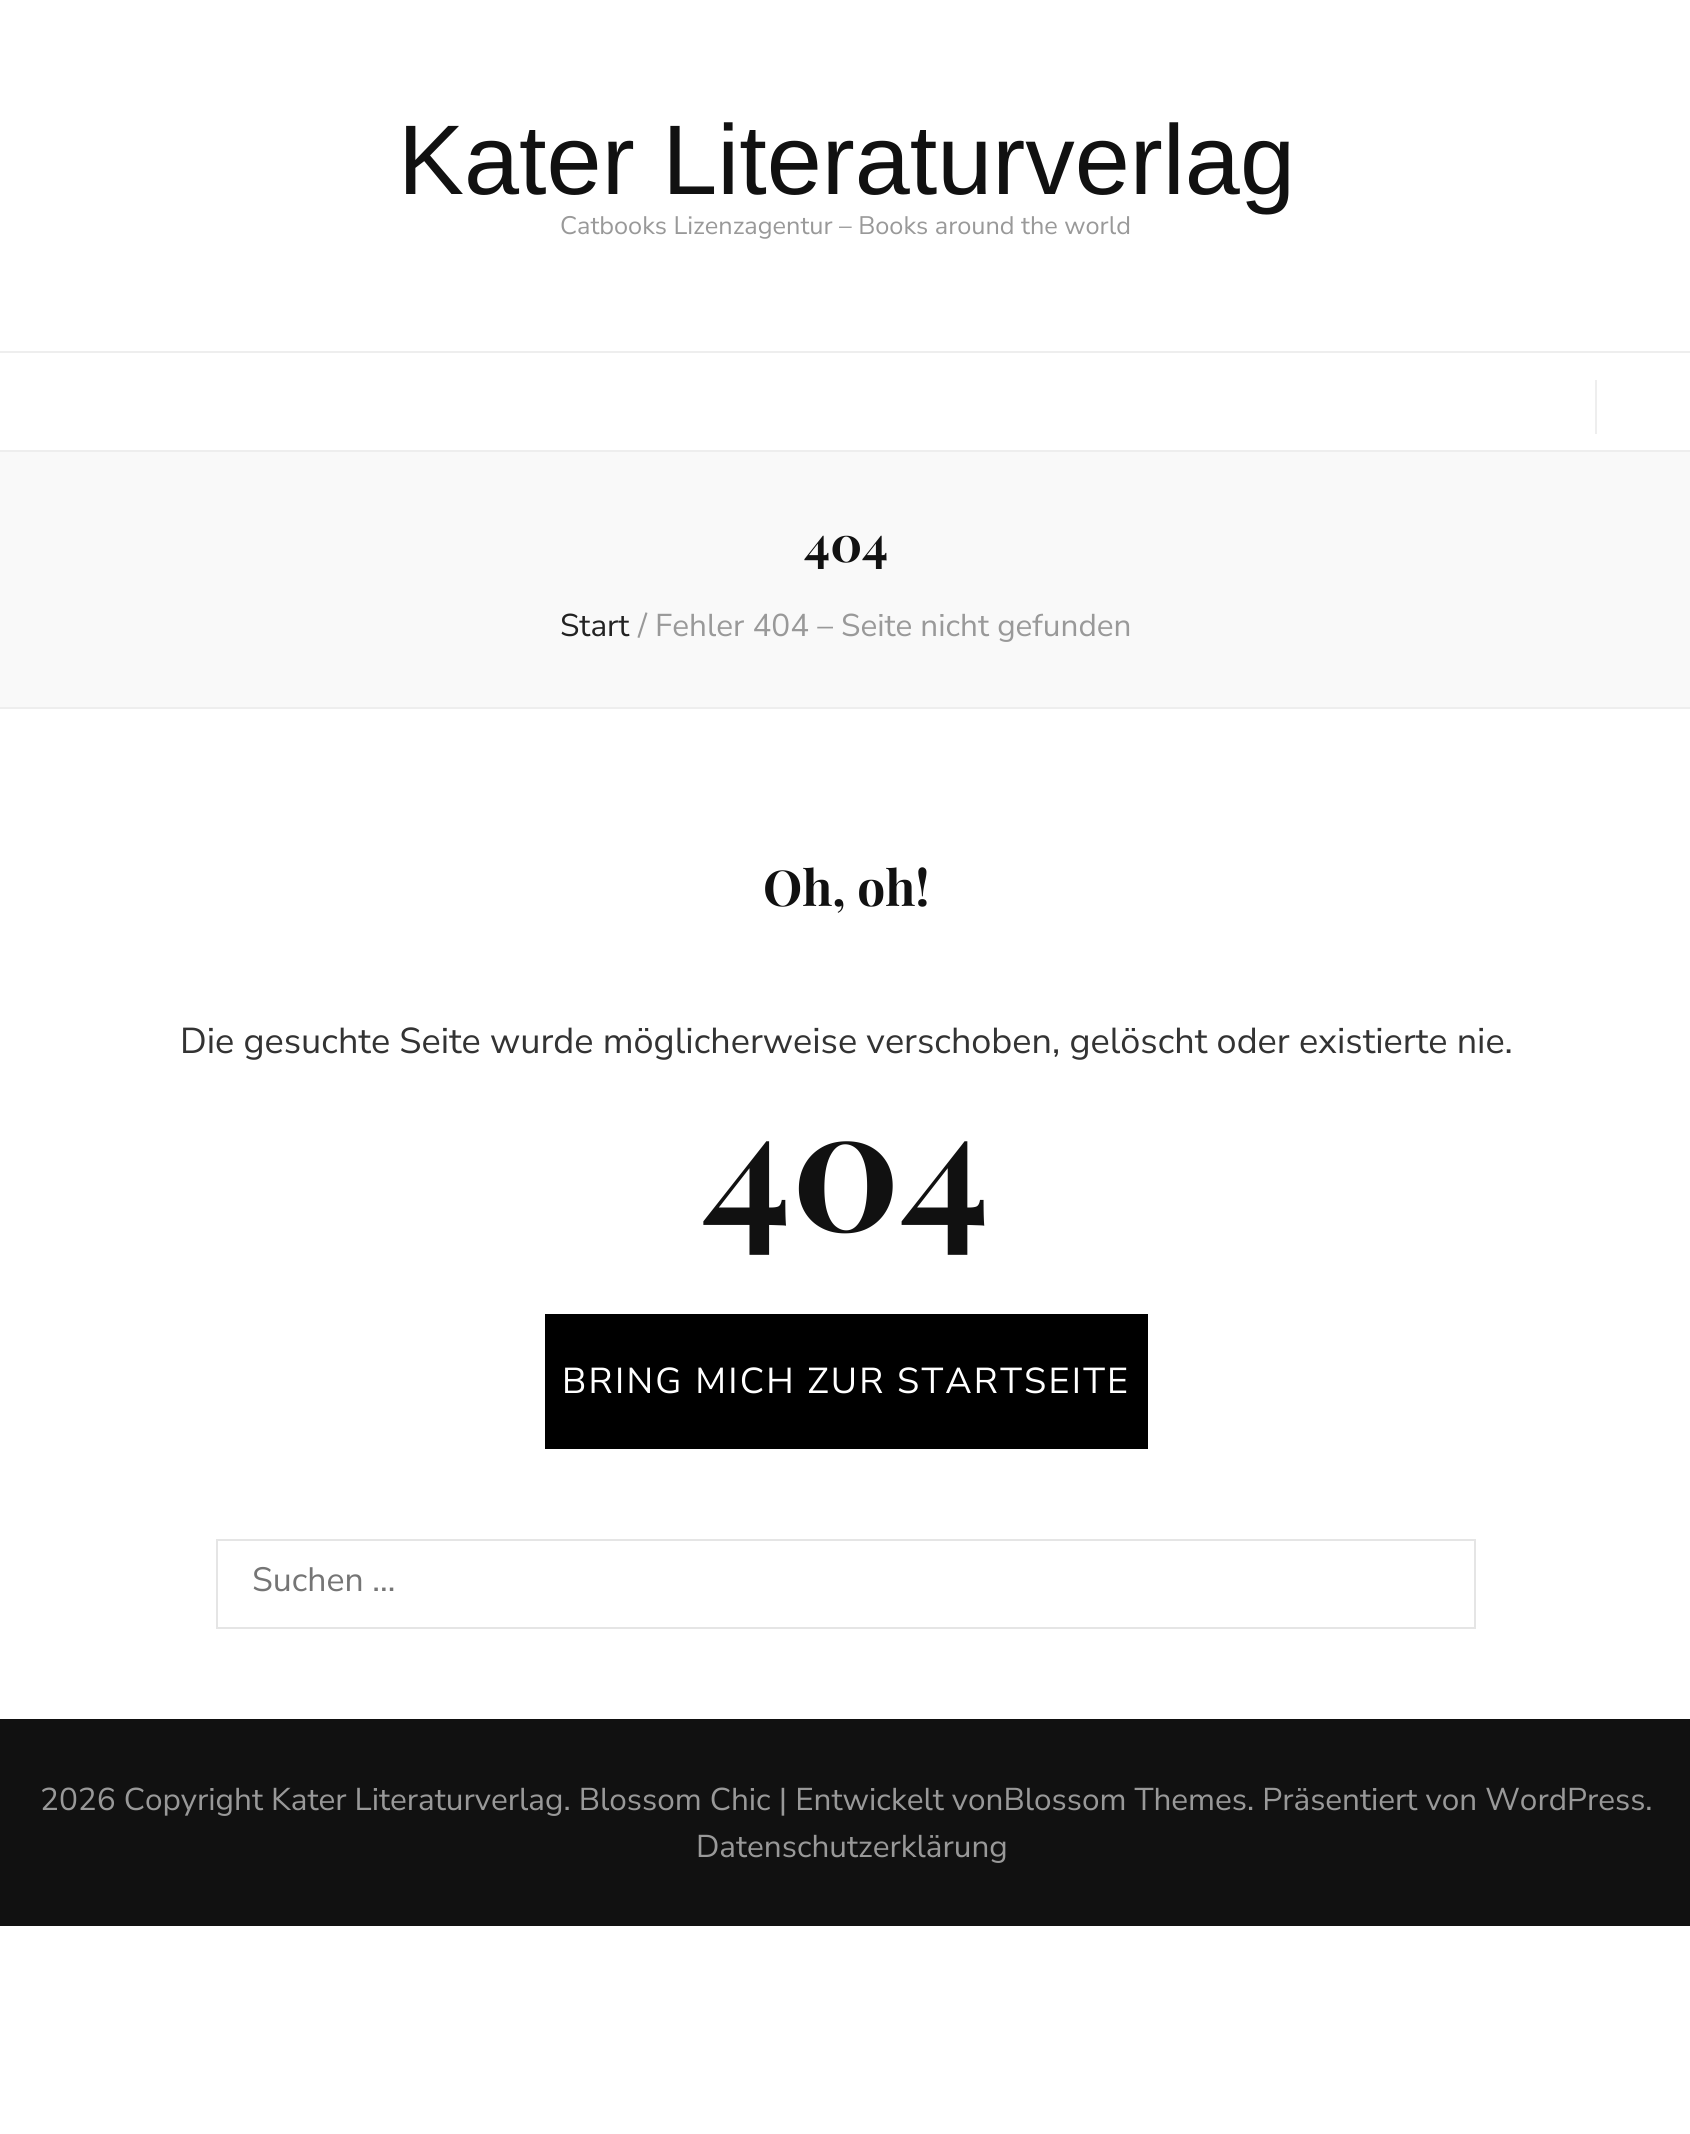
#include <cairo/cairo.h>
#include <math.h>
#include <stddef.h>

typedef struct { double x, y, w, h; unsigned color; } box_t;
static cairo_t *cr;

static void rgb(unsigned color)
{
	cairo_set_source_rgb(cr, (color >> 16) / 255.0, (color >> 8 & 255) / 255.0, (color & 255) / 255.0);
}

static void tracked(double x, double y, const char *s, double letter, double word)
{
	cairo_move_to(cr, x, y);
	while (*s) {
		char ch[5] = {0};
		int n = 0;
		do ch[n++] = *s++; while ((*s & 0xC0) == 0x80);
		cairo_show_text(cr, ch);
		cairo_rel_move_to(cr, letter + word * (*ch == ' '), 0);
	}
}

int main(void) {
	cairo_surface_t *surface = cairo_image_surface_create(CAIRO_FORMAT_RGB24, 1690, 2134);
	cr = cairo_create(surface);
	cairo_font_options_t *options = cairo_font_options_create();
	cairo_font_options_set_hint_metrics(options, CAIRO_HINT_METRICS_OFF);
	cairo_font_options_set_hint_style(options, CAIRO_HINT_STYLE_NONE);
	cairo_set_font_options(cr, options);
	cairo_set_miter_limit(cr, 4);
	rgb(0xffffff);
	cairo_paint(cr);
	{
		static const box_t items[] = {
			{0, 351, 1690, 2, 0xeeeeee},
			{0, 450, 1690, 2, 0xeeeeee},
			{1595, 380, 2, 54, 0xeeeeee},
			{0, 452, 1690, 255, 0xf9f9f9},
			{0, 707, 1690, 2, 0xeeeeee},
			{545, 1314, 603, 135, 0x000000},
		};
		for (size_t i = 0; i < sizeof items / sizeof *items; i++) {
			rgb(items[i].color);
			cairo_rectangle(cr, items[i].x, items[i].y, items[i].w, items[i].h);
			cairo_fill(cr);
		}
	}
	cairo_rectangle(cr, 217, 1540, 1258, 88);
	rgb(0xe5e5e5);
	cairo_stroke(cr);
	rgb(0x111111);
	cairo_rectangle(cr, 0, 1719, 1690, 207);
	cairo_fill(cr);
	cairo_select_font_face(cr, "Liberation Sans", CAIRO_FONT_SLANT_NORMAL, CAIRO_FONT_WEIGHT_NORMAL);
	cairo_set_font_size(cr, 99);
	cairo_move_to(cr, 398, 194);
	cairo_show_text(cr, "Kater Literaturverlag");
	cairo_select_font_face(cr, "Nunito Sans", CAIRO_FONT_SLANT_NORMAL, CAIRO_FONT_WEIGHT_NORMAL);
	cairo_set_font_size(cr, 25.3);
	rgb(0x999999);
	cairo_move_to(cr, 560, 234);
	cairo_show_text(cr, "Catbooks Lizenzagentur – Books around the world");
	cairo_select_font_face(cr, "Playfair Display", CAIRO_FONT_SLANT_NORMAL, CAIRO_FONT_WEIGHT_BOLD);
	cairo_set_font_size(cr, 49.5);
	rgb(0x111111);
	cairo_move_to(cr, 804, 562);
	cairo_show_text(cr, "404");
	cairo_select_font_face(cr, "Nunito Sans", CAIRO_FONT_SLANT_NORMAL, CAIRO_FONT_WEIGHT_NORMAL);
	cairo_set_font_size(cr, 31.5);
	rgb(0x222222);
	cairo_move_to(cr, 560, 636);
	cairo_show_text(cr, "Start");
	rgb(0x999999);
	cairo_move_to(cr, 638, 636);
	cairo_show_text(cr, "/ Fehler 404 – Seite nicht gefunden");
	cairo_select_font_face(cr, "Playfair Display", CAIRO_FONT_SLANT_NORMAL, CAIRO_FONT_WEIGHT_BOLD);
	cairo_set_font_size(cr, 49.5);
	rgb(0x111111);
	cairo_move_to(cr, 763, 906);
	cairo_show_text(cr, "Oh, oh!");
	cairo_select_font_face(cr, "Nunito Sans", CAIRO_FONT_SLANT_NORMAL, CAIRO_FONT_WEIGHT_NORMAL);
	cairo_set_font_size(cr, 36);
	rgb(0x333333);
	cairo_move_to(cr, 180, 1053);
	cairo_show_text(cr, "Die gesuchte Seite wurde möglicherweise verschoben, gelöscht oder existierte nie.");
	cairo_select_font_face(cr, "Playfair Display", CAIRO_FONT_SLANT_NORMAL, CAIRO_FONT_WEIGHT_BOLD);
	cairo_set_font_size(cr, 169);
	rgb(0x111111);
	cairo_move_to(cr, 702, 1231);
	cairo_show_text(cr, "404");
	cairo_select_font_face(cr, "Nunito Sans", CAIRO_FONT_SLANT_NORMAL, CAIRO_FONT_WEIGHT_NORMAL);
	cairo_set_font_size(cr, 36);
	rgb(0xffffff);
	tracked(562, 1393, "BRING MICH ZUR STARTSEITE", 2.25, 0);
	cairo_set_font_size(cr, 33.75);
	rgb(0x757575);
	cairo_move_to(cr, 252, 1591);
	cairo_show_text(cr, "Suchen …");
	cairo_set_font_size(cr, 31.5);
	rgb(0x999999);
	cairo_move_to(cr, 40, 1810);
	cairo_show_text(cr, "2026 Copyright Kater Literaturverlag. Blossom Chic | Entwickelt vonBlossom Themes. Präsentiert von WordPress.");
	cairo_move_to(cr, 696, 1857);
	cairo_show_text(cr, "Datenschutzerklärung");
	cairo_surface_write_to_png(surface, "page.png");
	cairo_font_options_destroy(options);
	cairo_destroy(cr);
	cairo_surface_destroy(surface);
	return 0;
}
